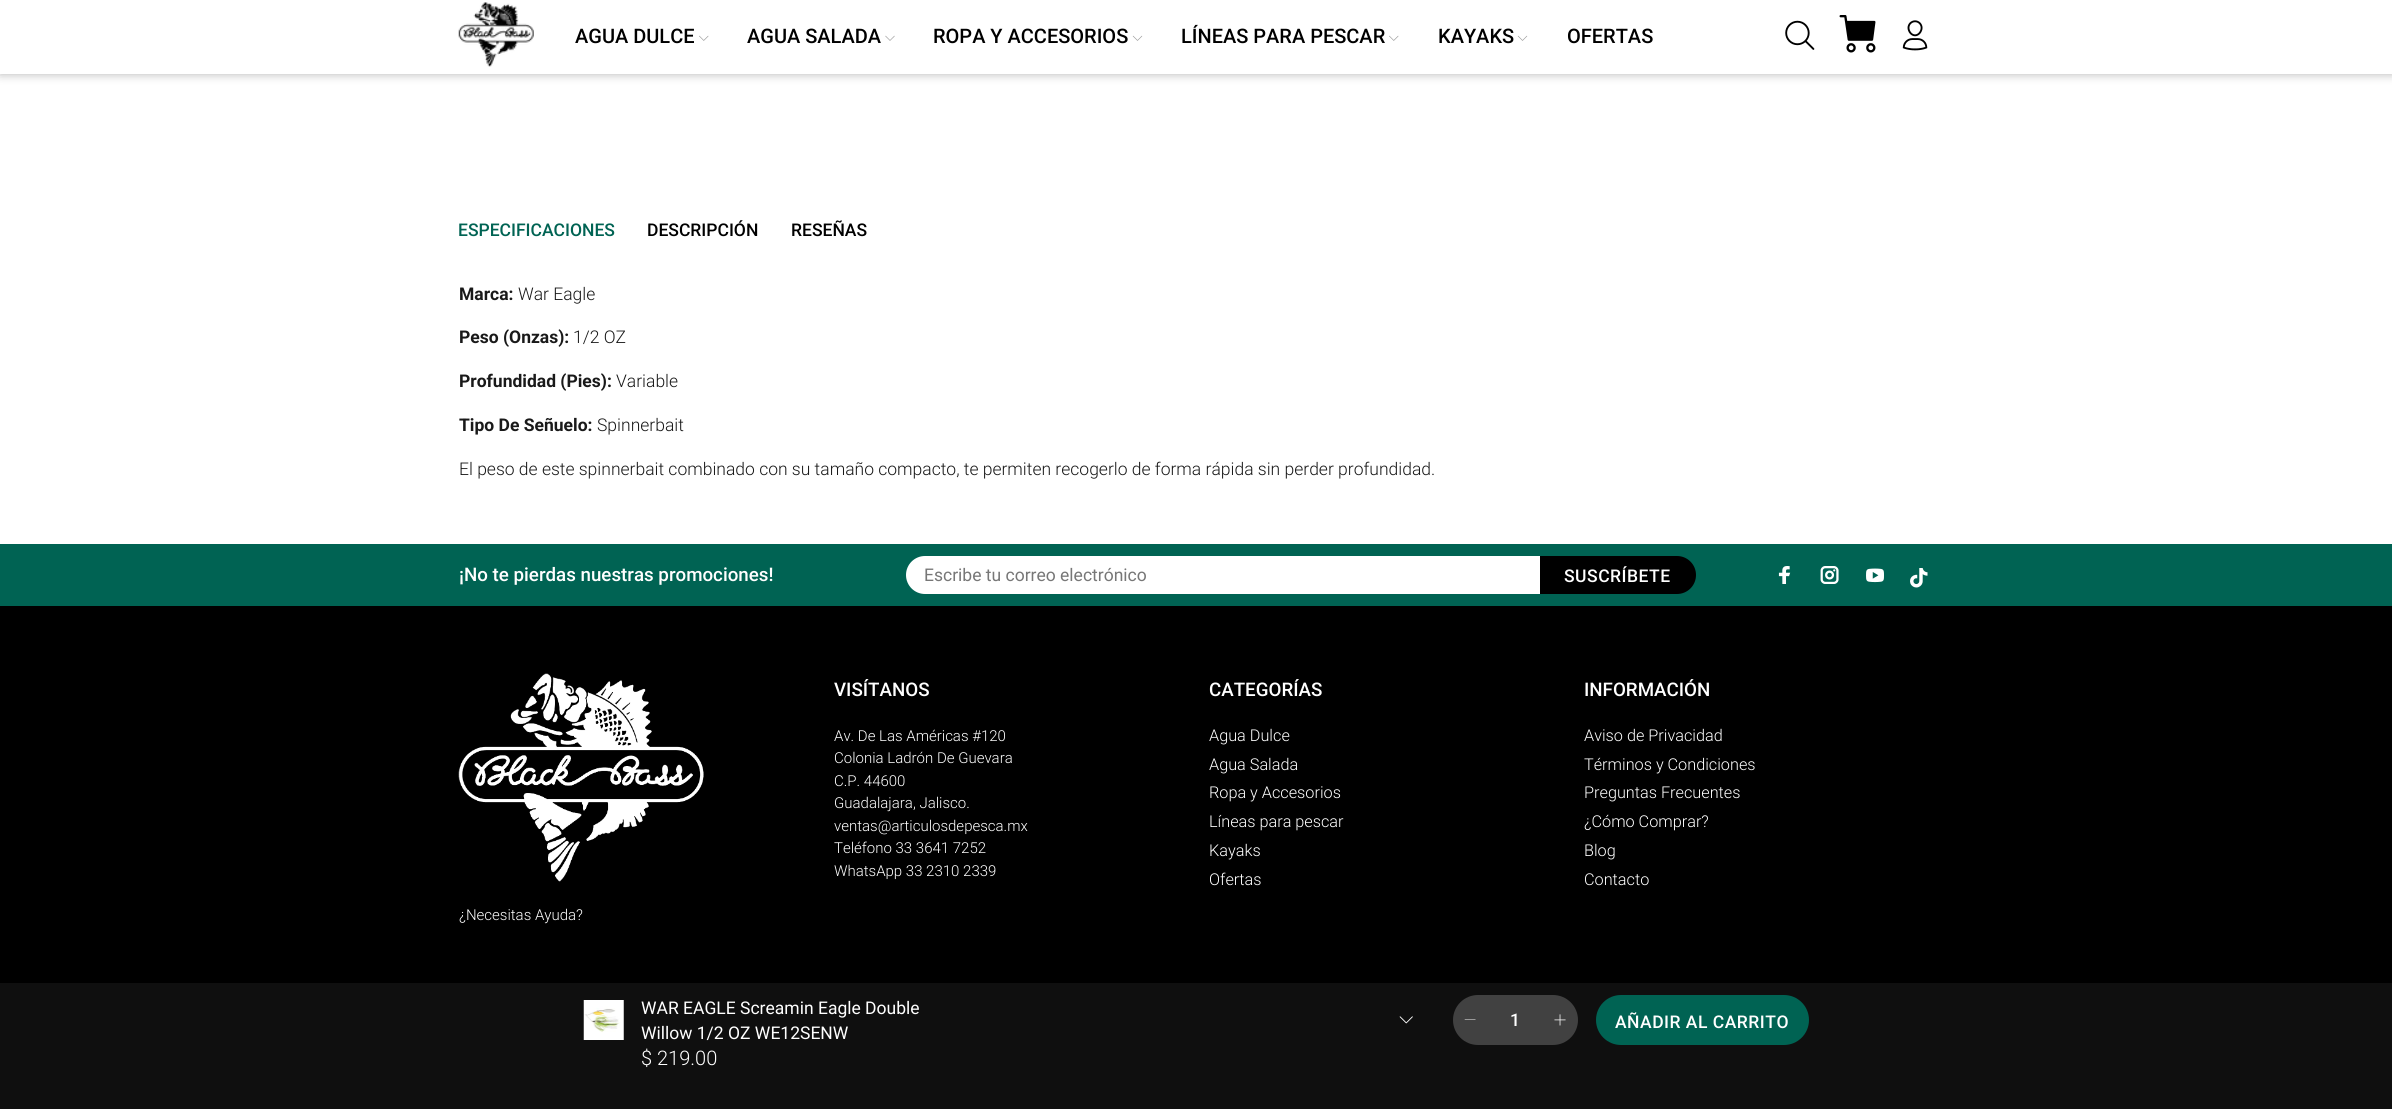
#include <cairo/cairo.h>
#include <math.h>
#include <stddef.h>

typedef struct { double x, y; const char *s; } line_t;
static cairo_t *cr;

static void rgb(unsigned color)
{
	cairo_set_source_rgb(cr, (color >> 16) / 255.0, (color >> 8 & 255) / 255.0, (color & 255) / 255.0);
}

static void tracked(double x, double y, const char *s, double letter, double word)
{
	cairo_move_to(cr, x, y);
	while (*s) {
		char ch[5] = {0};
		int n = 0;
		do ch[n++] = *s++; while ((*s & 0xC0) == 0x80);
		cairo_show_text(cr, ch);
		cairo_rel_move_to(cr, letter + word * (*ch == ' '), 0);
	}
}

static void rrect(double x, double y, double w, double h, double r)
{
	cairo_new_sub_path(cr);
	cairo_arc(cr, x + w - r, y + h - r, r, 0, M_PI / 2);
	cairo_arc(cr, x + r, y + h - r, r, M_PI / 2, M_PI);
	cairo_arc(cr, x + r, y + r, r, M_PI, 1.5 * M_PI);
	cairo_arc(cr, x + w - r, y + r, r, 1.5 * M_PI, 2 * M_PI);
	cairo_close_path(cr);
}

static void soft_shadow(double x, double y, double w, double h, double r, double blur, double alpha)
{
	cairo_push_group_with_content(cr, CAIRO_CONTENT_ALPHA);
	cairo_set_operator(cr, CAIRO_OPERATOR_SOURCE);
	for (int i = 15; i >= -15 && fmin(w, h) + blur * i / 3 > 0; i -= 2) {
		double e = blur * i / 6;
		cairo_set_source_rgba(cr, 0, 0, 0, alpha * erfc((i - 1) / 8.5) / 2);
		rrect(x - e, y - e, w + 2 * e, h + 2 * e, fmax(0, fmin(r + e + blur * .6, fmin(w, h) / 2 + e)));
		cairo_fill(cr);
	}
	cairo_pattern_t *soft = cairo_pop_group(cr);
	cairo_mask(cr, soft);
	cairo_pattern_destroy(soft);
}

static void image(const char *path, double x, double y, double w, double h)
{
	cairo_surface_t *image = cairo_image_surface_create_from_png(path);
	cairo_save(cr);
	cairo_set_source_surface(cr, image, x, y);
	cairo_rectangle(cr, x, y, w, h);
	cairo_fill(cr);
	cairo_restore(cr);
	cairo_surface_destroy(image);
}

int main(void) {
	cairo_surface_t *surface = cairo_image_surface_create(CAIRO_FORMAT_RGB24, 2392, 1109);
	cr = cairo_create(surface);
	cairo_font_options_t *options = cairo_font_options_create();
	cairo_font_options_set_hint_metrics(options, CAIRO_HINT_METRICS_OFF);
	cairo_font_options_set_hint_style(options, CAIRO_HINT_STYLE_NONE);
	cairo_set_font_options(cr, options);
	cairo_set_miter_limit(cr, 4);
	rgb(0xffffff);
	cairo_paint(cr);
	rgb(0x000000);
	soft_shadow(0, 0, 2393, 74, 0, 5, 0.3);
	rgb(0xffffff);
	cairo_rectangle(cr, 0, 0, 2392, 74);
	cairo_fill(cr);
	image("img/1.png", 458, 2, 76, 65);
	image("img/2.png", 699, 35, 10, 6);
	image("img/3.png", 885, 35, 10, 6);
	image("img/4.png", 1132, 35, 11, 6);
	image("img/2.png", 1389, 35, 10, 6);
	image("img/4.png", 1517, 35, 11, 6);
	image("img/5.png", 1785, 20, 30, 30);
	image("img/6.png", 1839, 15, 37, 38);
	image("img/7.png", 1902, 20, 26, 31);
	rgb(0x0f0f0f);
	cairo_rectangle(cr, 0, 983, 2392, 126);
	cairo_fill(cr);
	image("img/8.png", 583, 1000, 41, 40);
	image("img/9.png", 1399, 1016, 14, 8);
	rgb(0x414141);
	rrect(1453, 995, 125, 50, 25);
	cairo_fill(cr);
	rgb(0xffffff);
	cairo_new_path(cr);
	cairo_move_to(cr, 1475.5, 1019.5);
	cairo_line_to(cr, 1475.5, 1020);
	cairo_line_to(cr, 1464.5, 1020);
	cairo_line_to(cr, 1465, 1019.5);
	cairo_close_path(cr);
	cairo_fill(cr);
	image("img/10.png", 1554, 1014, 12, 12);
	rgb(0x006353);
	rrect(1596, 995, 213, 50, 25);
	cairo_fill(cr);
	rgb(0x000000);
	cairo_rectangle(cr, 0, 606, 2392, 377);
	cairo_fill(cr);
	rgb(0x006353);
	cairo_rectangle(cr, 0, 544, 2392, 62);
	cairo_fill(cr);
	rgb(0xffffff);
	cairo_new_path(cr);
	cairo_move_to(cr, 925, 556);
	cairo_line_to(cr, 1540, 556);
	cairo_line_to(cr, 1540, 594);
	cairo_line_to(cr, 925, 594);
	cairo_curve_to(cr, 914.5, 594, 906, 585.5, 906, 575);
	cairo_curve_to(cr, 906, 564.5, 914.5, 556, 925, 556);
	cairo_close_path(cr);
	cairo_fill(cr);
	rgb(0x000000);
	cairo_new_path(cr);
	cairo_move_to(cr, 1540, 556);
	cairo_line_to(cr, 1677, 556);
	cairo_curve_to(cr, 1687.5, 556, 1696, 564.5, 1696, 575);
	cairo_curve_to(cr, 1696, 585.5, 1687.5, 594, 1677, 594);
	cairo_line_to(cr, 1540, 594);
	cairo_close_path(cr);
	cairo_fill(cr);
	image("img/11.png", 1778, 566, 13, 18);
	image("img/12.png", 1820, 566, 19, 18);
	image("img/13.png", 1866, 568, 18, 15);
	image("img/14.png", 1910, 568, 18, 20);
	image("img/15.png", 458, 673, 246, 209);
	cairo_select_font_face(cr, "Roboto Medium", CAIRO_FONT_SLANT_NORMAL, CAIRO_FONT_WEIGHT_NORMAL);
	cairo_set_font_size(cr, 20);
	{
		static const line_t items[] = {
			{575, 43, "AGUA DULCE"},
			{747, 43, "AGUA SALADA"},
			{933, 43, "ROPA Y ACCESORIOS"},
			{1181, 43, "LÍNEAS PARA PESCAR"},
			{1438, 43, "KAYAKS"},
			{1567, 43, "OFERTAS"},
		};
		for (size_t i = 0; i < sizeof items / sizeof *items; i++) {
			cairo_move_to(cr, items[i].x, items[i].y);
			cairo_show_text(cr, items[i].s);
		}
	}
	cairo_set_font_size(cr, 17.5);
	rgb(0x006353);
	cairo_move_to(cr, 458, 236);
	cairo_show_text(cr, "ESPECIFICACIONES");
	rgb(0x000000);
	cairo_move_to(cr, 647, 236);
	cairo_show_text(cr, "DESCRIPCIÓN");
	cairo_move_to(cr, 791, 236);
	cairo_show_text(cr, "RESEÑAS");
	cairo_select_font_face(cr, "Roboto", CAIRO_FONT_SLANT_NORMAL, CAIRO_FONT_WEIGHT_BOLD);
	rgb(0x191919);
	cairo_move_to(cr, 459, 300);
	cairo_show_text(cr, "Marca:");
	cairo_select_font_face(cr, "Roboto Light", CAIRO_FONT_SLANT_NORMAL, CAIRO_FONT_WEIGHT_NORMAL);
	cairo_move_to(cr, 518, 300);
	cairo_show_text(cr, "War Eagle");
	cairo_select_font_face(cr, "Roboto", CAIRO_FONT_SLANT_NORMAL, CAIRO_FONT_WEIGHT_BOLD);
	cairo_move_to(cr, 459, 343);
	cairo_show_text(cr, "Peso (Onzas):");
	cairo_select_font_face(cr, "Roboto Light", CAIRO_FONT_SLANT_NORMAL, CAIRO_FONT_WEIGHT_NORMAL);
	cairo_move_to(cr, 573, 343);
	cairo_show_text(cr, "1/2 OZ");
	cairo_select_font_face(cr, "Roboto", CAIRO_FONT_SLANT_NORMAL, CAIRO_FONT_WEIGHT_BOLD);
	cairo_move_to(cr, 459, 387);
	cairo_show_text(cr, "Profundidad (Pies):");
	cairo_select_font_face(cr, "Roboto Light", CAIRO_FONT_SLANT_NORMAL, CAIRO_FONT_WEIGHT_NORMAL);
	cairo_move_to(cr, 616, 387);
	cairo_show_text(cr, "Variable");
	cairo_select_font_face(cr, "Roboto", CAIRO_FONT_SLANT_NORMAL, CAIRO_FONT_WEIGHT_BOLD);
	cairo_move_to(cr, 459, 431);
	cairo_show_text(cr, "Tipo De Señuelo:");
	cairo_select_font_face(cr, "Roboto Light", CAIRO_FONT_SLANT_NORMAL, CAIRO_FONT_WEIGHT_NORMAL);
	cairo_move_to(cr, 597, 431);
	cairo_show_text(cr, "Spinnerbait");
	cairo_move_to(cr, 459, 475);
	cairo_show_text(cr, "El peso de este spinnerbait combinado con su tamaño compacto, te permiten recogerlo de forma rápida sin perder profundidad.");
	cairo_select_font_face(cr, "Roboto", CAIRO_FONT_SLANT_NORMAL, CAIRO_FONT_WEIGHT_NORMAL);
	rgb(0xffffff);
	cairo_move_to(cr, 641, 1014);
	cairo_show_text(cr, "WAR EAGLE Screamin Eagle Double");
	cairo_move_to(cr, 641, 1039);
	cairo_show_text(cr, "Willow 1/2 OZ WE12SENW");
	cairo_select_font_face(cr, "Roboto Light", CAIRO_FONT_SLANT_NORMAL, CAIRO_FONT_WEIGHT_NORMAL);
	cairo_set_font_size(cr, 20);
	cairo_move_to(cr, 641, 1065);
	cairo_show_text(cr, "$ 219.00");
	cairo_select_font_face(cr, "Roboto Medium", CAIRO_FONT_SLANT_NORMAL, CAIRO_FONT_WEIGHT_NORMAL);
	cairo_set_font_size(cr, 17.5);
	cairo_move_to(cr, 1510, 1026);
	cairo_show_text(cr, "1");
	tracked(1615, 1028, "AÑADIR AL CARRITO", 0.5, 0);
	cairo_set_font_size(cr, 18.75);
	cairo_move_to(cr, 459, 581);
	cairo_show_text(cr, "¡No te pierdas nuestras promociones!");
	cairo_select_font_face(cr, "Roboto", CAIRO_FONT_SLANT_NORMAL, CAIRO_FONT_WEIGHT_NORMAL);
	cairo_set_font_size(cr, 17.5);
	rgb(0x777777);
	cairo_move_to(cr, 924, 581);
	cairo_show_text(cr, "Escribe tu correo electrónico");
	cairo_select_font_face(cr, "Roboto Medium", CAIRO_FONT_SLANT_NORMAL, CAIRO_FONT_WEIGHT_NORMAL);
	rgb(0xffffff);
	tracked(1564, 582, "SUSCRÍBETE", 0.5, 0);
	cairo_set_font_size(cr, 18.75);
	cairo_move_to(cr, 834, 696);
	cairo_show_text(cr, "VISÍTANOS");
	cairo_select_font_face(cr, "Roboto Light", CAIRO_FONT_SLANT_NORMAL, CAIRO_FONT_WEIGHT_NORMAL);
	cairo_set_font_size(cr, 15);
	{
		static const line_t items[] = {
			{834, 741, "Av. De Las Américas #120"},
			{834, 763, "Colonia Ladrón De Guevara"},
			{834, 786, "C.P. 44600"},
			{834, 808, "Guadalajara, Jalisco."},
			{834, 831, "ventas@articulosdepesca.mx"},
			{834, 853, "Teléfono 33 3641 7252"},
			{834, 876, "WhatsApp 33 2310 2339"},
		};
		for (size_t i = 0; i < sizeof items / sizeof *items; i++) {
			cairo_move_to(cr, items[i].x, items[i].y);
			cairo_show_text(cr, items[i].s);
		}
	}
	cairo_select_font_face(cr, "Roboto Medium", CAIRO_FONT_SLANT_NORMAL, CAIRO_FONT_WEIGHT_NORMAL);
	cairo_set_font_size(cr, 18.75);
	cairo_move_to(cr, 1209, 696);
	cairo_show_text(cr, "CATEGORÍAS");
	cairo_select_font_face(cr, "Roboto Light", CAIRO_FONT_SLANT_NORMAL, CAIRO_FONT_WEIGHT_NORMAL);
	cairo_set_font_size(cr, 16.25);
	{
		static const line_t items[] = {
			{1209, 741, "Agua Dulce"},
			{1209, 770, "Agua Salada"},
			{1209, 798, "Ropa y Accesorios"},
			{1209, 827, "Líneas para pescar"},
			{1209, 856, "Kayaks"},
			{1209, 885, "Ofertas"},
		};
		for (size_t i = 0; i < sizeof items / sizeof *items; i++) {
			cairo_move_to(cr, items[i].x, items[i].y);
			cairo_show_text(cr, items[i].s);
		}
	}
	cairo_select_font_face(cr, "Roboto Medium", CAIRO_FONT_SLANT_NORMAL, CAIRO_FONT_WEIGHT_NORMAL);
	cairo_set_font_size(cr, 18.75);
	cairo_move_to(cr, 1584, 696);
	cairo_show_text(cr, "INFORMACIÓN");
	cairo_select_font_face(cr, "Roboto Light", CAIRO_FONT_SLANT_NORMAL, CAIRO_FONT_WEIGHT_NORMAL);
	cairo_set_font_size(cr, 16.25);
	{
		static const line_t items[] = {
			{1584, 741, "Aviso de Privacidad"},
			{1584, 770, "Términos y Condiciones"},
			{1584, 798, "Preguntas Frecuentes"},
			{1584, 827, "¿Cómo Comprar?"},
			{1584, 856, "Blog"},
			{1584, 885, "Contacto"},
		};
		for (size_t i = 0; i < sizeof items / sizeof *items; i++) {
			cairo_move_to(cr, items[i].x, items[i].y);
			cairo_show_text(cr, items[i].s);
		}
	}
	cairo_set_font_size(cr, 15);
	cairo_move_to(cr, 459, 920);
	cairo_show_text(cr, "¿Necesitas Ayuda?");
	cairo_surface_write_to_png(surface, "page.png");
	cairo_font_options_destroy(options);
	cairo_destroy(cr);
	cairo_surface_destroy(surface);
	return 0;
}
